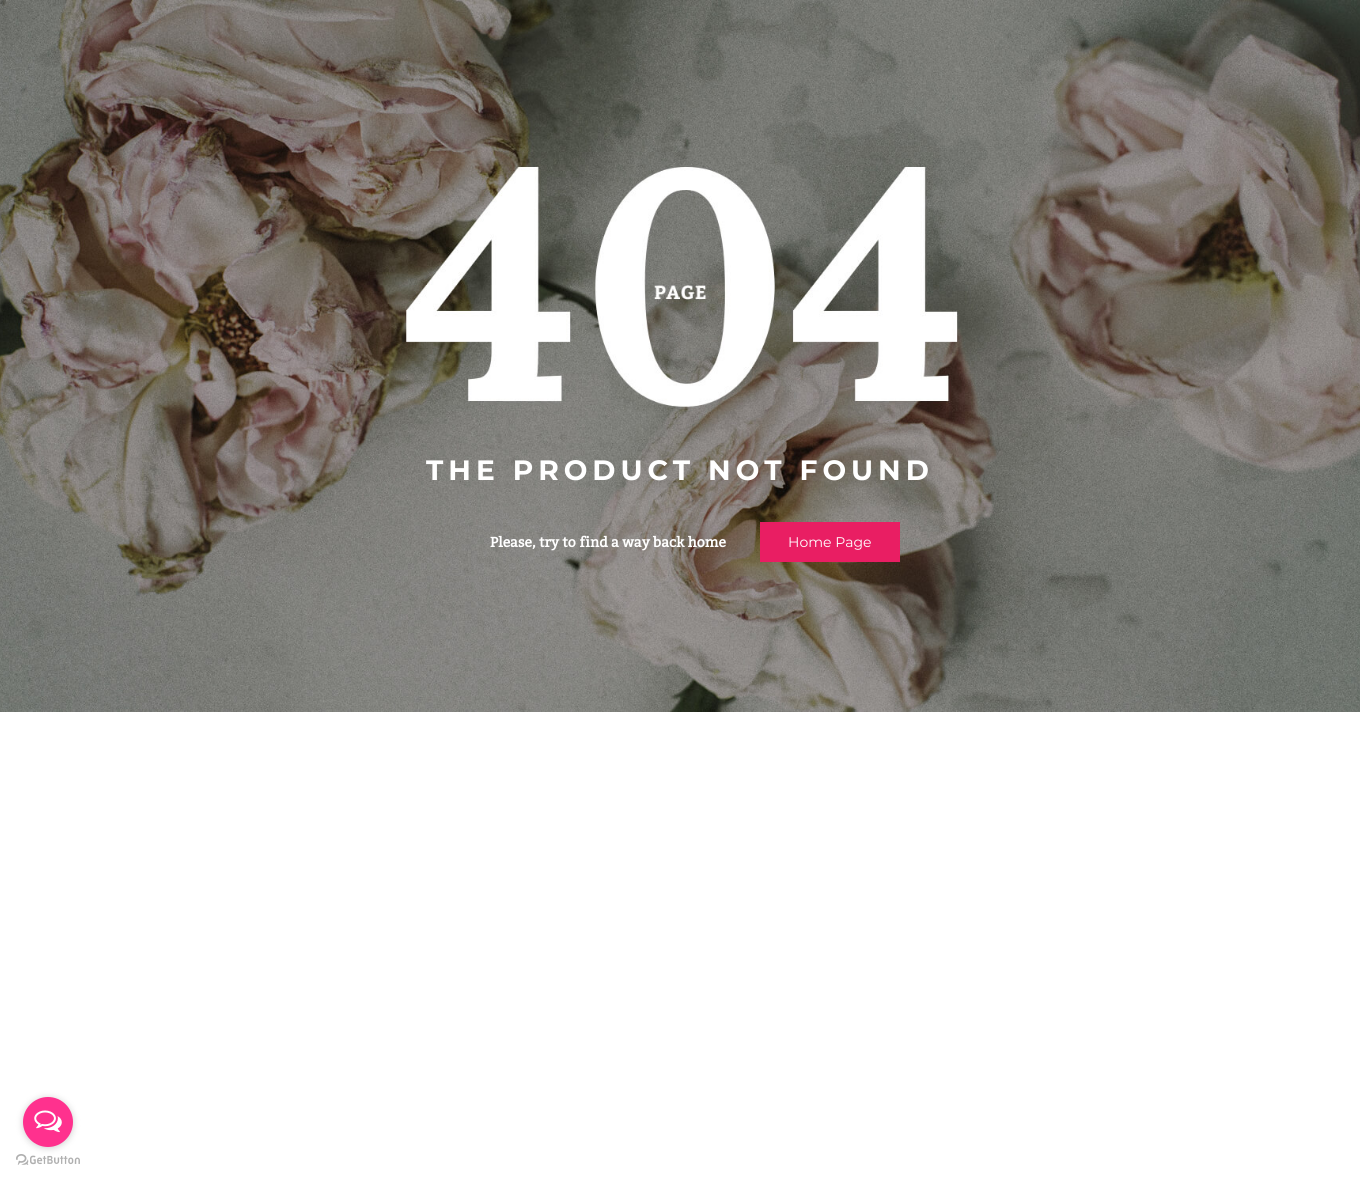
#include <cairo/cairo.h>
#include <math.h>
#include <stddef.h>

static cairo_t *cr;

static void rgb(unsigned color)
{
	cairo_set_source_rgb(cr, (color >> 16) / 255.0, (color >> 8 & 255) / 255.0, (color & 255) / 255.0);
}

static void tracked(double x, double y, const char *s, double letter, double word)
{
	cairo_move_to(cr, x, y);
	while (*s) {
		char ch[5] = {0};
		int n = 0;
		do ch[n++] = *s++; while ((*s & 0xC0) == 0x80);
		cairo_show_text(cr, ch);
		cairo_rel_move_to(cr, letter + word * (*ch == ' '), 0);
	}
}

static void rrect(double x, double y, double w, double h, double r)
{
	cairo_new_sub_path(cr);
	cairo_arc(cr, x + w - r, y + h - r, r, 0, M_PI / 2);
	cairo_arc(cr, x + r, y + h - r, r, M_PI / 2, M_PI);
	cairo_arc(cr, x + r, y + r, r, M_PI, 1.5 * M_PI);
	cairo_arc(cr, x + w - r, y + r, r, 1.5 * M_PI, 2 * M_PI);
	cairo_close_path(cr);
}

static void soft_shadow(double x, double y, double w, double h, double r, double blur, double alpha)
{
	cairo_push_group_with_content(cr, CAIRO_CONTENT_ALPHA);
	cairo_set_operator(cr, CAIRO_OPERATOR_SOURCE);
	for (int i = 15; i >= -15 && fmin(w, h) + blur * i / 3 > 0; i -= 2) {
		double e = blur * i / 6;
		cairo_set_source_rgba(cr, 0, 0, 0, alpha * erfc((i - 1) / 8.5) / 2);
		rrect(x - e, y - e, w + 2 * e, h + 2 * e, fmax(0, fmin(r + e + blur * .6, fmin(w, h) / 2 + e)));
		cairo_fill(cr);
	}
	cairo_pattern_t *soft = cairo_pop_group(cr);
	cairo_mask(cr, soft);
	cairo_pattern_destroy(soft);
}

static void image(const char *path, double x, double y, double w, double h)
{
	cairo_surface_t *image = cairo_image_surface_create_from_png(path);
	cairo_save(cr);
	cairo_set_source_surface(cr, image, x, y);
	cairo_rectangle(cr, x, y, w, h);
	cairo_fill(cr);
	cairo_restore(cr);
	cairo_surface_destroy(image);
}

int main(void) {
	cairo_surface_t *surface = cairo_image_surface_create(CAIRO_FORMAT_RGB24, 1360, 1181);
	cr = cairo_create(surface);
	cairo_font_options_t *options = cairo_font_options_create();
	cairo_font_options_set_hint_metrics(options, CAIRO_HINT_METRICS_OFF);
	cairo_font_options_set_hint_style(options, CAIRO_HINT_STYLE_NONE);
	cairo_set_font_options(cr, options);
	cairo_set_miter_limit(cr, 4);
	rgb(0xffffff);
	cairo_paint(cr);
	image("img/1.png", 0, 0, 1360, 712);
	rgb(0xe91e63);
	cairo_rectangle(cr, 760, 522, 140, 40);
	cairo_fill(cr);
	image("img/3.png", 16, 1154, 64, 11);
	rgb(0x888888);
	soft_shadow(23, 1098, 50, 50, 25, 3.5, 0.4);
	rgb(0xff318e);
	cairo_arc(cr, 48, 1122, 25, 0, 2 * M_PI);
	cairo_fill(cr);
	image("img/2.png", 34, 1110, 28, 23);
	cairo_select_font_face(cr, "Montserrat", CAIRO_FONT_SLANT_NORMAL, CAIRO_FONT_WEIGHT_BOLD);
	cairo_set_font_size(cr, 28);
	rgb(0xffffff);
	tracked(426, 480, "THE PRODUCT NOT FOUND", 5, 0);
	cairo_select_font_face(cr, "Bitter", CAIRO_FONT_SLANT_NORMAL, CAIRO_FONT_WEIGHT_BOLD);
	cairo_set_font_size(cr, 14);
	cairo_move_to(cr, 490, 547);
	cairo_show_text(cr, "Please, try to find a way back home");
	cairo_select_font_face(cr, "Montserrat", CAIRO_FONT_SLANT_NORMAL, CAIRO_FONT_WEIGHT_NORMAL);
	cairo_move_to(cr, 788, 547);
	cairo_show_text(cr, "Home Page");
	cairo_surface_write_to_png(surface, "page.png");
	cairo_font_options_destroy(options);
	cairo_destroy(cr);
	cairo_surface_destroy(surface);
	return 0;
}
